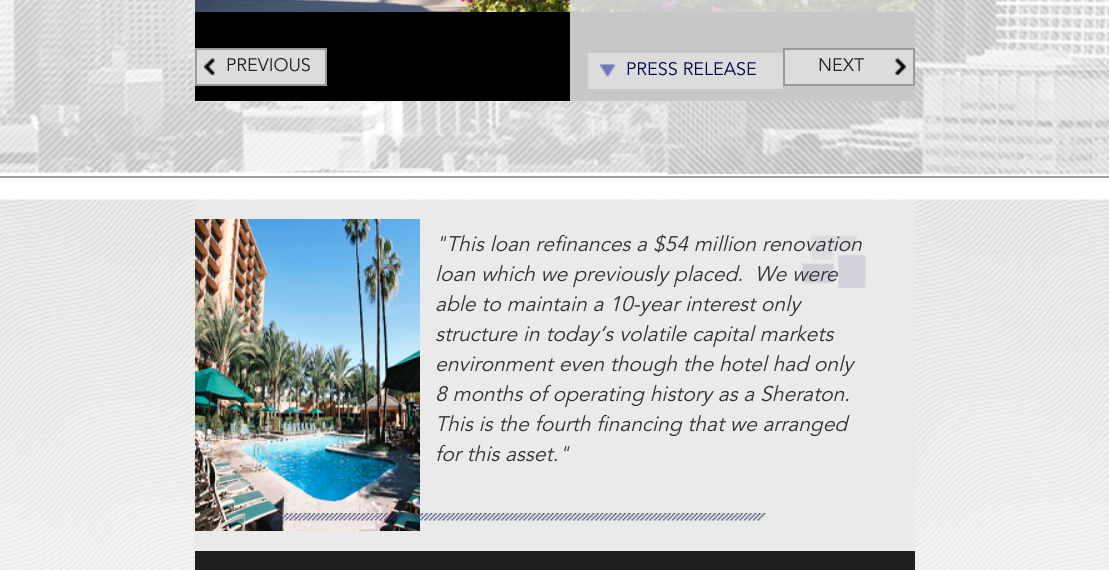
#include <cairo/cairo.h>
#include <math.h>
#include <stddef.h>

typedef struct { double x, y; const char *s; } line_t;
static cairo_t *cr;

static void rgb(unsigned color)
{
	cairo_set_source_rgb(cr, (color >> 16) / 255.0, (color >> 8 & 255) / 255.0, (color & 255) / 255.0);
}

static void image(const char *path, double x, double y, double w, double h)
{
	cairo_surface_t *image = cairo_image_surface_create_from_png(path);
	cairo_save(cr);
	cairo_set_source_surface(cr, image, x, y);
	cairo_rectangle(cr, x, y, w, h);
	cairo_fill(cr);
	cairo_restore(cr);
	cairo_surface_destroy(image);
}

int main(void) {
	cairo_surface_t *surface = cairo_image_surface_create(CAIRO_FORMAT_RGB24, 1109, 570);
	cr = cairo_create(surface);
	cairo_font_options_t *options = cairo_font_options_create();
	cairo_font_options_set_hint_metrics(options, CAIRO_HINT_METRICS_OFF);
	cairo_font_options_set_hint_style(options, CAIRO_HINT_STYLE_NONE);
	cairo_set_font_options(cr, options);
	cairo_set_miter_limit(cr, 4);
	rgb(0xffffff);
	cairo_paint(cr);
	image("img/1.png", 0, 0, 1109, 175);
	rgb(0xa09e9f);
	cairo_rectangle(cr, 0, 176, 1109, 2);
	cairo_fill(cr);
	rgb(0x000000);
	cairo_rectangle(cr, 195, 12, 720, 89);
	cairo_fill(cr);
	image("img/2.png", 195, 0, 720, 12);
	rgb(0xdcdcdc);
	cairo_rectangle(cr, 197, 50, 128, 34);
	cairo_fill(cr);
	image("img/3.png", 204, 58, 11, 17);
	cairo_rectangle(cr, 196, 49, 130, 36);
	rgb(0x999999);
	cairo_stroke(cr);
	cairo_set_source_rgba(cr, 0.918, 0.918, 0.918, 0.85);
	cairo_rectangle(cr, 570, 0, 345, 101);
	cairo_fill(cr);
	rgb(0xdcdcdc);
	cairo_rectangle(cr, 588, 53, 195, 36);
	cairo_fill(cr);
	image("img/4.png", 600, 64, 15, 13);
	cairo_rectangle(cr, 785, 50, 128, 34);
	cairo_fill(cr);
	image("img/5.png", 895, 58, 11, 17);
	cairo_rectangle(cr, 784, 49, 130, 36);
	rgb(0x999999);
	cairo_stroke(cr);
	image("img/6.png", 0, 199, 1109, 371);
	rgb(0xeaeaea);
	cairo_rectangle(cr, 195, 200, 720, 351);
	cairo_fill(cr);
	image("img/7.png", 195, 219, 225, 312);
	image("img/9.png", 271, 513, 495, 8);
	rgb(0x211f20);
	cairo_rectangle(cr, 195, 551, 720, 19);
	cairo_fill(cr);
	cairo_select_font_face(cr, "Avenir", CAIRO_FONT_SLANT_NORMAL, CAIRO_FONT_WEIGHT_NORMAL);
	cairo_set_font_size(cr, 18);
	rgb(0x221f20);
	cairo_move_to(cr, 226, 71);
	cairo_show_text(cr, "PREVIOUS");
	rgb(0x00054c);
	cairo_move_to(cr, 626, 75);
	cairo_show_text(cr, "PRESS RELEASE");
	rgb(0x221f20);
	cairo_move_to(cr, 818, 71);
	cairo_show_text(cr, "NEXT");
	cairo_select_font_face(cr, "Avenir", CAIRO_FONT_SLANT_ITALIC, CAIRO_FONT_WEIGHT_NORMAL);
	cairo_set_font_size(cr, 21);
	rgb(0x333333);
	{
		static const line_t items[] = {
			{435, 251, "\"This loan refinances a $54 million renovation"},
			{435, 281, "loan which we previously placed.  We were"},
			{435, 311, "able to maintain a 10-year interest only"},
			{435, 341, "structure in today’s volatile capital markets"},
			{435, 371, "environment even though the hotel had only"},
			{435, 401, "8 months of operating history as a Sheraton."},
			{435, 431, "This is the fourth financing that we arranged"},
			{435, 461, "for this asset.\""},
		};
		for (size_t i = 0; i < sizeof items / sizeof *items; i++) {
			cairo_move_to(cr, items[i].x, items[i].y);
			cairo_show_text(cr, items[i].s);
		}
	}
	image("img/8.png", 802, 235, 64, 53);
	cairo_surface_write_to_png(surface, "page.png");
	cairo_font_options_destroy(options);
	cairo_destroy(cr);
	cairo_surface_destroy(surface);
	return 0;
}
